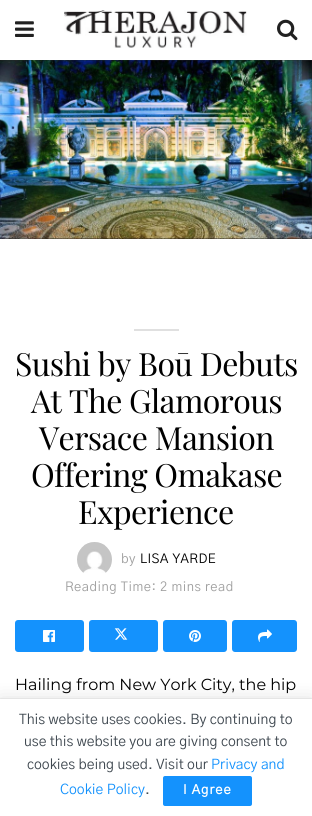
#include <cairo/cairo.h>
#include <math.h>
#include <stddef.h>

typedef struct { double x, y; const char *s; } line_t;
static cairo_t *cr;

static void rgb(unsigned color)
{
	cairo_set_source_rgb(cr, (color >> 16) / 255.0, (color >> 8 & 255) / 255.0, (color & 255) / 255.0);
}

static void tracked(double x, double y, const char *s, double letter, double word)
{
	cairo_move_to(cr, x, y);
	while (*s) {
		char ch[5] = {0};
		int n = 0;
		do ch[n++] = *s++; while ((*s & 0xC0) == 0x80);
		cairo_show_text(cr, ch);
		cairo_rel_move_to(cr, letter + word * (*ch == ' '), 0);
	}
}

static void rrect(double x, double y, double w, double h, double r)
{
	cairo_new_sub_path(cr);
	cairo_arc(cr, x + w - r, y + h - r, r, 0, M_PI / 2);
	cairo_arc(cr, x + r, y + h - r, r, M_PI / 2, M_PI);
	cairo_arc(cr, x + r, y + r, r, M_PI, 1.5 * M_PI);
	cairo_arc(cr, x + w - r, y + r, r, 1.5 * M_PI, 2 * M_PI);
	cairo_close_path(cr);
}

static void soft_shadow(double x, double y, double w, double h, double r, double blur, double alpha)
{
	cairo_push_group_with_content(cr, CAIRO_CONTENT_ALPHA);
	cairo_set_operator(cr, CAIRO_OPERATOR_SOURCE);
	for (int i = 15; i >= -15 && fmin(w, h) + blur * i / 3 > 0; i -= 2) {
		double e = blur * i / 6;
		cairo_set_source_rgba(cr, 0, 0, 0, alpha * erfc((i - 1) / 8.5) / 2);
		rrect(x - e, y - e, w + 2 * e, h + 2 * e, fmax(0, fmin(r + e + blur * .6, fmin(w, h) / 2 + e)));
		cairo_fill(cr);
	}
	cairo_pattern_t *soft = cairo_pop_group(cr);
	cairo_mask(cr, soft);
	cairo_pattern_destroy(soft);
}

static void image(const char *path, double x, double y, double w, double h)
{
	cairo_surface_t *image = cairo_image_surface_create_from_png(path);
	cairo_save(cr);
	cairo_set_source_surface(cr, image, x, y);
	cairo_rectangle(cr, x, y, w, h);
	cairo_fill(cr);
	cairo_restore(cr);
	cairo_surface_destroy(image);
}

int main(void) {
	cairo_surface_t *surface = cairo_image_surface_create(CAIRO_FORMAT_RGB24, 312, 816);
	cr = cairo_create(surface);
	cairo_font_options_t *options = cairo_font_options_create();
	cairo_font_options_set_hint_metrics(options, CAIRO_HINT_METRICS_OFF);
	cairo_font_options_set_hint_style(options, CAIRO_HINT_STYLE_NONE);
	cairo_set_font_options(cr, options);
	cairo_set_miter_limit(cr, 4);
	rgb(0xffffff);
	cairo_paint(cr);
	image("img/1.png", 15, 21, 19, 16);
	image("img/2.png", 64, 10, 183, 38);
	image("img/3.png", 277, 19, 21, 22);
	image("img/4.png", 0, 60, 312, 179);
	rgb(0xe0e0e0);
	cairo_rectangle(cr, 134, 329, 45, 2);
	cairo_fill(cr);
	image("img/5.png", 77, 542, 35, 31);
	rgb(0x1492fd);
	rrect(15, 620, 69, 32, 3);
	cairo_fill(cr);
	image("img/6.png", 43, 630, 12, 12);
	rrect(89, 620, 69, 32, 3);
	cairo_fill(cr);
	image("img/7.png", 114, 628, 14, 12);
	rrect(163, 620, 64, 32, 3);
	cairo_fill(cr);
	image("img/8.png", 189, 630, 12, 12);
	rrect(232, 620, 65, 32, 3);
	cairo_fill(cr);
	image("img/9.png", 258, 629, 14, 13);
	rgb(0x000000);
	soft_shadow(0, 701, 312, 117, 0, 10, 0.15);
	soft_shadow(0, 699, 312, 117, 0, 0.5, 0.2);
	rgb(0xffffff);
	cairo_rectangle(cr, 0, 699, 312, 117);
	cairo_fill(cr);
	rgb(0x1492fd);
	rrect(163, 776, 89, 30, 2);
	cairo_fill(cr);
	cairo_select_font_face(cr, "Playfair Display", CAIRO_FONT_SLANT_NORMAL, CAIRO_FONT_WEIGHT_NORMAL);
	cairo_set_font_size(cr, 32);
	rgb(0x000000);
	{
		static const line_t items[] = {
			{15, 376, "Sushi by Boū Debuts"},
			{31, 413, "At The Glamorous"},
			{39, 450, "Versace Mansion"},
			{31, 487, "Offering Omakase"},
			{78, 524, "Experience"},
		};
		for (size_t i = 0; i < sizeof items / sizeof *items; i++) {
			tracked(items[i].x, items[i].y, items[i].s, -0.6, 0);
		}
	}
	cairo_select_font_face(cr, "Gothic A1", CAIRO_FONT_SLANT_NORMAL, CAIRO_FONT_WEIGHT_NORMAL);
	cairo_set_font_size(cr, 13);
	rgb(0xa0a0a0);
	tracked(121, 563, "by", 0.5, 0);
	rgb(0x000000);
	tracked(140, 563, "LISA YARDE", 0.5, 0);
	rgb(0xa0a0a0);
	tracked(65, 591, "Reading Time: 2 mins read", 0.5, 0);
	cairo_select_font_face(cr, "Montserrat Thin", CAIRO_FONT_SLANT_NORMAL, CAIRO_FONT_WEIGHT_NORMAL);
	cairo_set_font_size(cr, 16);
	rgb(0x000000);
	cairo_move_to(cr, 15, 690);
	cairo_show_text(cr, "Hailing from New York City, the hip");
	cairo_select_font_face(cr, "Gothic A1", CAIRO_FONT_SLANT_NORMAL, CAIRO_FONT_WEIGHT_NORMAL);
	cairo_set_font_size(cr, 14);
	rgb(0x3f4850);
	{
		static const line_t items[] = {
			{19, 724, "This website uses cookies. By continuing to"},
			{24, 746, "use this website you are giving consent to"},
			{27, 769, "cookies being used. Visit our"},
		};
		for (size_t i = 0; i < sizeof items / sizeof *items; i++) {
			cairo_move_to(cr, items[i].x, items[i].y);
			cairo_show_text(cr, items[i].s);
		}
	}
	rgb(0x1492fd);
	cairo_move_to(cr, 211, 769);
	cairo_show_text(cr, "Privacy and");
	cairo_move_to(cr, 60, 794);
	cairo_show_text(cr, "Cookie Policy");
	rgb(0x3f4850);
	cairo_move_to(cr, 145, 794);
	cairo_show_text(cr, ".");
	cairo_select_font_face(cr, "Gothic A1", CAIRO_FONT_SLANT_NORMAL, CAIRO_FONT_WEIGHT_BOLD);
	cairo_set_font_size(cr, 13);
	rgb(0xffffff);
	tracked(183, 794, "I Agree", 1, 0);
	cairo_surface_write_to_png(surface, "page.png");
	cairo_font_options_destroy(options);
	cairo_destroy(cr);
	cairo_surface_destroy(surface);
	return 0;
}
